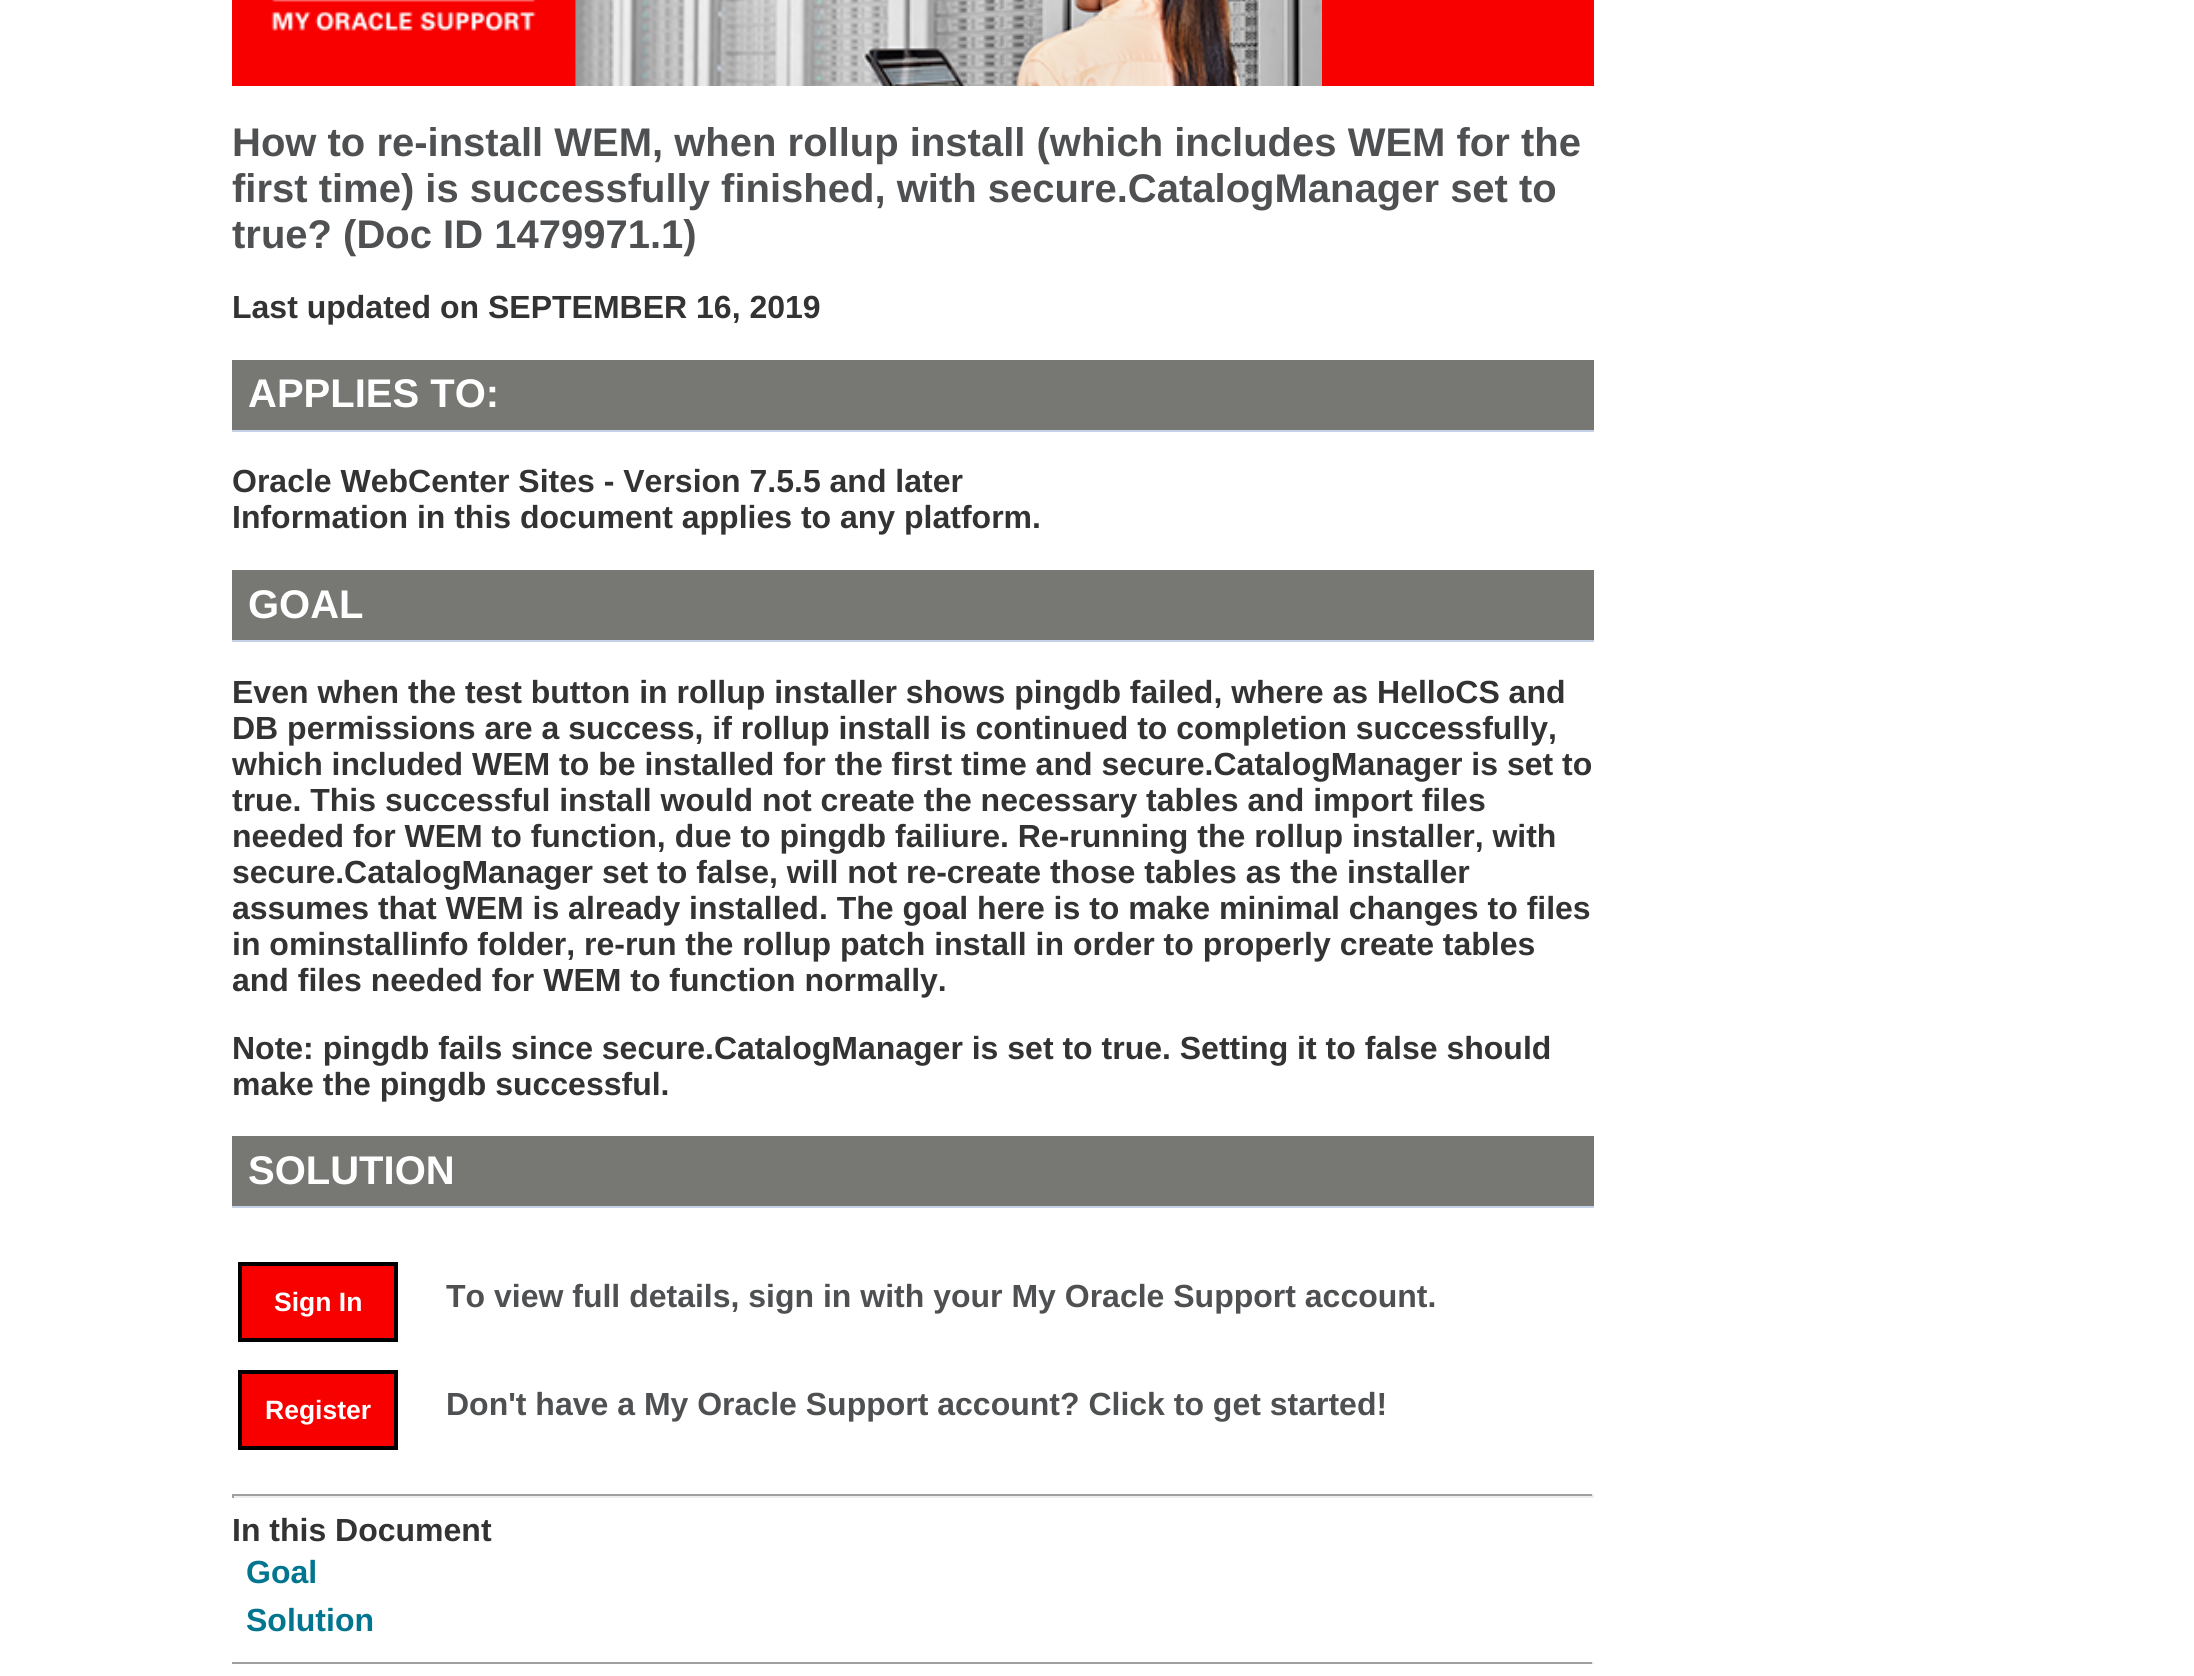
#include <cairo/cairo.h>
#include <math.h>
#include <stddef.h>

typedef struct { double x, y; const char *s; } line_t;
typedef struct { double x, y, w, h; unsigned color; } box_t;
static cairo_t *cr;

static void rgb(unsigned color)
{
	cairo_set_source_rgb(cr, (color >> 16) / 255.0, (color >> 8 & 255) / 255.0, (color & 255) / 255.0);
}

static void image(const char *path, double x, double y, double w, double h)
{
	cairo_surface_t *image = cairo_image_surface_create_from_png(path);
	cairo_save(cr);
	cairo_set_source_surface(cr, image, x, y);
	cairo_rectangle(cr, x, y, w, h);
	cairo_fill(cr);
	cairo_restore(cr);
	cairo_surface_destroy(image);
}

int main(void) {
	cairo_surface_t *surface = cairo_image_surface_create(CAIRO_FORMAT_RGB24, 2194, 1676);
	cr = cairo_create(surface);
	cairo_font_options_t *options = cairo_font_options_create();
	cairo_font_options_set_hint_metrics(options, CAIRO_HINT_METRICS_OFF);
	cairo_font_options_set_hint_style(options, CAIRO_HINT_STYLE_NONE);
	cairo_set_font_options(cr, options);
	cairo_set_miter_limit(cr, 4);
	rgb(0xffffff);
	cairo_paint(cr);
	rgb(0xf80000);
	cairo_rectangle(cr, 232, 0, 1362, 86);
	cairo_fill(cr);
	image("img/1.png", 271, 0, 1051, 86);
	{
		static const box_t items[] = {
			{232, 360, 1362, 70, 0x777773},
			{232, 430, 1362, 2, 0xc4d1e6},
			{232, 570, 1362, 70, 0x777773},
			{232, 640, 1362, 2, 0xc4d1e6},
			{232, 1136, 1362, 70, 0x777773},
			{232, 1206, 1362, 2, 0xc4d1e6},
		};
		for (size_t i = 0; i < sizeof items / sizeof *items; i++) {
			rgb(items[i].color);
			cairo_rectangle(cr, items[i].x, items[i].y, items[i].w, items[i].h);
			cairo_fill(cr);
		}
	}
	rgb(0xf80000);
	cairo_rectangle(cr, 240, 1264, 156, 76);
	cairo_fill_preserve(cr);
	rgb(0x000000);
	cairo_set_line_width(cr, 4);
	cairo_stroke(cr);
	rgb(0xf80000);
	cairo_rectangle(cr, 240, 1372, 156, 76);
	cairo_fill_preserve(cr);
	rgb(0x000000);
	cairo_stroke(cr);
	{
		static const box_t items[] = {
			{232, 1494, 1362, 2, 0x9f9f9f},
			{1592, 1494, 2, 4, 0xeeeeee},
			{232, 1496, 1362, 2, 0xeeeeee},
			{232, 1494, 2, 4, 0x9f9f9f},
			{232, 1662, 1362, 2, 0x9f9f9f},
			{1592, 1662, 2, 2, 0xeeeeee},
		};
		for (size_t i = 0; i < sizeof items / sizeof *items; i++) {
			rgb(items[i].color);
			cairo_rectangle(cr, items[i].x, items[i].y, items[i].w, items[i].h);
			cairo_fill(cr);
		}
	}
	cairo_select_font_face(cr, "Liberation Sans", CAIRO_FONT_SLANT_NORMAL, CAIRO_FONT_WEIGHT_BOLD);
	cairo_set_font_size(cr, 40);
	rgb(0x4e5052);
	{
		static const line_t items[] = {
			{232, 156, "How to re-install WEM, when rollup install (which includes WEM for the"},
			{232, 202, "first time) is successfully finished, with secure.CatalogManager set to"},
			{232, 248, "true? (Doc ID 1479971.1)"},
		};
		for (size_t i = 0; i < sizeof items / sizeof *items; i++) {
			cairo_move_to(cr, items[i].x, items[i].y);
			cairo_show_text(cr, items[i].s);
		}
	}
	cairo_set_font_size(cr, 32);
	rgb(0x333333);
	cairo_move_to(cr, 232, 318);
	cairo_show_text(cr, "Last updated on SEPTEMBER 16, 2019");
	cairo_set_font_size(cr, 40);
	rgb(0xffffff);
	cairo_move_to(cr, 248, 407);
	cairo_show_text(cr, "APPLIES TO:");
	cairo_set_font_size(cr, 32);
	rgb(0x333333);
	cairo_move_to(cr, 232, 492);
	cairo_show_text(cr, "Oracle WebCenter Sites - Version 7.5.5 and later");
	cairo_move_to(cr, 232, 528);
	cairo_show_text(cr, "Information in this document applies to any platform.");
	cairo_set_font_size(cr, 40);
	rgb(0xffffff);
	cairo_move_to(cr, 248, 618);
	cairo_show_text(cr, "GOAL");
	cairo_set_font_size(cr, 32);
	rgb(0x333333);
	{
		static const line_t items[] = {
			{232, 703, "Even when the test button in rollup installer shows pingdb failed, where as HelloCS and"},
			{232, 739, "DB permissions are a success, if rollup install is continued to completion successfully,"},
			{232, 775, "which included WEM to be installed for the first time and secure.CatalogManager is set to"},
			{232, 811, "true. This successful install would not create the necessary tables and import files"},
			{232, 847, "needed for WEM to function, due to pingdb failiure. Re-running the rollup installer, with"},
			{232, 883, "secure.CatalogManager set to false, will not re-create those tables as the installer"},
			{232, 919, "assumes that WEM is already installed. The goal here is to make minimal changes to files"},
			{232, 955, "in ominstallinfo folder, re-run the rollup patch install in order to properly create tables"},
			{232, 991, "and files needed for WEM to function normally."},
			{232, 1059, "Note: pingdb fails since secure.CatalogManager is set to true. Setting it to false should"},
			{232, 1095, "make the pingdb successful."},
		};
		for (size_t i = 0; i < sizeof items / sizeof *items; i++) {
			cairo_move_to(cr, items[i].x, items[i].y);
			cairo_show_text(cr, items[i].s);
		}
	}
	cairo_set_font_size(cr, 40);
	rgb(0xffffff);
	cairo_move_to(cr, 248, 1184);
	cairo_show_text(cr, "SOLUTION");
	cairo_set_font_size(cr, 26.5);
	cairo_move_to(cr, 274, 1311);
	cairo_show_text(cr, "Sign In");
	cairo_set_font_size(cr, 32);
	rgb(0x4e5052);
	cairo_move_to(cr, 446, 1307);
	cairo_show_text(cr, "To view full details, sign in with your My Oracle Support account.");
	cairo_set_font_size(cr, 26.5);
	rgb(0xffffff);
	cairo_move_to(cr, 265, 1419);
	cairo_show_text(cr, "Register");
	cairo_set_font_size(cr, 32);
	rgb(0x4e5052);
	cairo_move_to(cr, 446, 1415);
	cairo_show_text(cr, "Don't have a My Oracle Support account? Click to get started!");
	rgb(0x333333);
	cairo_move_to(cr, 232, 1541);
	cairo_show_text(cr, "In this Document");
	rgb(0x00758f);
	cairo_move_to(cr, 246, 1583);
	cairo_show_text(cr, "Goal");
	cairo_move_to(cr, 246, 1631);
	cairo_show_text(cr, "Solution");
	cairo_surface_write_to_png(surface, "page.png");
	cairo_font_options_destroy(options);
	cairo_destroy(cr);
	cairo_surface_destroy(surface);
	return 0;
}
